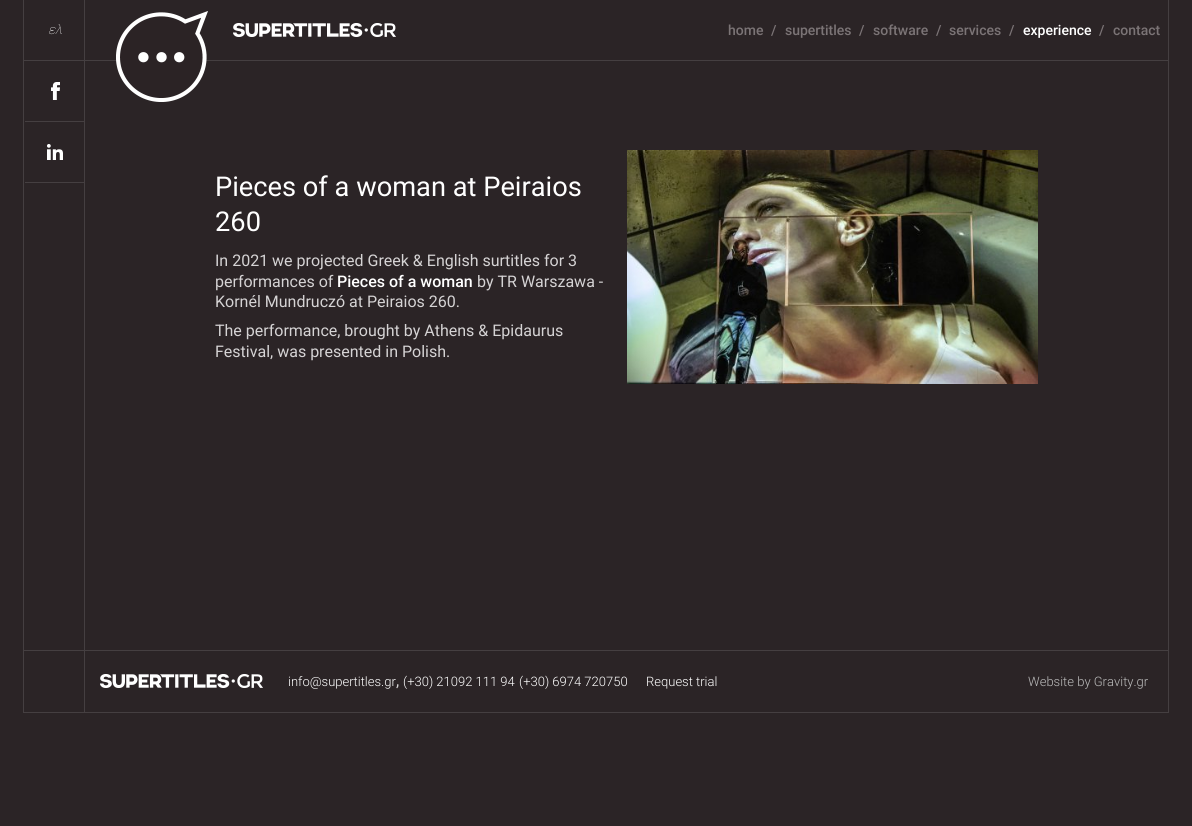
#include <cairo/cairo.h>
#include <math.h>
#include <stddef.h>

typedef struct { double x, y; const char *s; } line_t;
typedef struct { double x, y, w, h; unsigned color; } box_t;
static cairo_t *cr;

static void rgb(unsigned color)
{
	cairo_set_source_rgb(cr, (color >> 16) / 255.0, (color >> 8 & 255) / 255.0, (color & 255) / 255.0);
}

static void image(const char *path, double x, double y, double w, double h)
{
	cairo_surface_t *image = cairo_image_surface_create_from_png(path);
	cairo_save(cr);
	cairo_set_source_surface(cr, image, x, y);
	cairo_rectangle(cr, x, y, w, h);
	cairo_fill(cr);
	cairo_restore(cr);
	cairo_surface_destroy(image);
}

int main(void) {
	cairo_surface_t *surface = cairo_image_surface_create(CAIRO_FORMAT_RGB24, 1192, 826);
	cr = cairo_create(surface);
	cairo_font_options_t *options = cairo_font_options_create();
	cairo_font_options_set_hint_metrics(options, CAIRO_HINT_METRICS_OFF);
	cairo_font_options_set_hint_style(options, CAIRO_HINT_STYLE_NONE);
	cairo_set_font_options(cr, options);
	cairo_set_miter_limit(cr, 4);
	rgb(0x2b2426);
	cairo_paint(cr);
	{
		static const box_t items[] = {
			{1168, 0, 1, 713, 0x453f41},
			{23, 650, 1146, 1, 0x453f41},
			{23, 0, 1, 651, 0x453f41},
			{23, 60, 1146, 1, 0x453f41},
			{25, 60, 58, 1, 0x2b2426},
			{25, 60, 60, 1, 0x453f41},
		};
		for (size_t i = 0; i < sizeof items / sizeof *items; i++) {
			rgb(items[i].color);
			cairo_rectangle(cr, items[i].x, items[i].y, items[i].w, items[i].h);
			cairo_fill(cr);
		}
	}
	image("img/1.png", 51, 82, 9, 18);
	cairo_rectangle(cr, 84, 61, 1, 589);
	cairo_fill(cr);
	cairo_rectangle(cr, 25, 121, 60, 1);
	cairo_fill(cr);
	image("img/2.png", 47, 144, 16, 16);
	cairo_rectangle(cr, 25, 182, 60, 1);
	cairo_fill(cr);
	cairo_rectangle(cr, 84, 0, 1, 60);
	cairo_fill(cr);
	image("img/3.png", 116, 11, 280, 91);
	image("img/4.png", 627, 150, 411, 234);
	{
		static const box_t items[] = {
			{23, 712, 1146, 1, 0x453f41},
			{23, 651, 1, 62, 0x453f41},
			{84, 651, 1, 61, 0x453f41},
		};
		for (size_t i = 0; i < sizeof items / sizeof *items; i++) {
			rgb(items[i].color);
			cairo_rectangle(cr, items[i].x, items[i].y, items[i].w, items[i].h);
			cairo_fill(cr);
		}
	}
	image("img/5.png", 100, 674, 163, 14);
	cairo_select_font_face(cr, "Roboto Thin", CAIRO_FONT_SLANT_ITALIC, CAIRO_FONT_WEIGHT_NORMAL);
	cairo_set_font_size(cr, 13);
	rgb(0xffffff);
	cairo_move_to(cr, 48, 34);
	cairo_show_text(cr, "ελ");
	cairo_select_font_face(cr, "Roboto Medium", CAIRO_FONT_SLANT_NORMAL, CAIRO_FONT_WEIGHT_NORMAL);
	cairo_set_font_size(cr, 14);
	rgb(0x7b7476);
	{
		static const line_t items[] = {
			{728, 35, "home"},
			{771, 35, "/"},
			{785, 35, "supertitles"},
			{859, 35, "/"},
			{873, 35, "software"},
			{936, 35, "/"},
			{949, 35, "services"},
			{1009, 35, "/"},
		};
		for (size_t i = 0; i < sizeof items / sizeof *items; i++) {
			cairo_move_to(cr, items[i].x, items[i].y);
			cairo_show_text(cr, items[i].s);
		}
	}
	rgb(0xffffff);
	cairo_move_to(cr, 1023, 35);
	cairo_show_text(cr, "experience");
	rgb(0x7b7476);
	cairo_move_to(cr, 1099, 35);
	cairo_show_text(cr, "/");
	cairo_move_to(cr, 1113, 35);
	cairo_show_text(cr, "contact");
	cairo_select_font_face(cr, "Roboto", CAIRO_FONT_SLANT_NORMAL, CAIRO_FONT_WEIGHT_NORMAL);
	cairo_set_font_size(cr, 27.25);
	rgb(0xffffff);
	cairo_move_to(cr, 215, 196);
	cairo_show_text(cr, "Pieces of a woman at Peiraios");
	cairo_move_to(cr, 215, 231);
	cairo_show_text(cr, "260");
	cairo_set_font_size(cr, 16);
	rgb(0xd5d3d4);
	cairo_move_to(cr, 215, 266);
	cairo_show_text(cr, "In 2021 we projected Greek & English surtitles for 3");
	cairo_move_to(cr, 215, 287);
	cairo_show_text(cr, "performances of");
	cairo_select_font_face(cr, "Roboto Medium", CAIRO_FONT_SLANT_NORMAL, CAIRO_FONT_WEIGHT_NORMAL);
	rgb(0xffffff);
	cairo_move_to(cr, 337, 287);
	cairo_show_text(cr, "Pieces of a woman");
	cairo_select_font_face(cr, "Roboto", CAIRO_FONT_SLANT_NORMAL, CAIRO_FONT_WEIGHT_NORMAL);
	rgb(0xd5d3d4);
	{
		static const line_t items[] = {
			{477, 287, "by TR Warszawa -"},
			{215, 307, "Kornél Mundruczó at Peiraios 260."},
			{215, 336, "The performance, brought by Athens & Epidaurus"},
			{215, 357, "Festival, was presented in Polish."},
		};
		for (size_t i = 0; i < sizeof items / sizeof *items; i++) {
			cairo_move_to(cr, items[i].x, items[i].y);
			cairo_show_text(cr, items[i].s);
		}
	}
	cairo_select_font_face(cr, "Roboto Light", CAIRO_FONT_SLANT_NORMAL, CAIRO_FONT_WEIGHT_NORMAL);
	cairo_set_font_size(cr, 13);
	rgb(0xffffff);
	cairo_move_to(cr, 288, 686);
	cairo_show_text(cr, "info@supertitles.gr");
	cairo_select_font_face(cr, "Roboto", CAIRO_FONT_SLANT_NORMAL, CAIRO_FONT_WEIGHT_NORMAL);
	cairo_set_font_size(cr, 16);
	rgb(0xd5d3d4);
	cairo_move_to(cr, 396, 686);
	cairo_show_text(cr, ",");
	cairo_select_font_face(cr, "Roboto Light", CAIRO_FONT_SLANT_NORMAL, CAIRO_FONT_WEIGHT_NORMAL);
	cairo_set_font_size(cr, 13);
	rgb(0xffffff);
	{
		static const line_t items[] = {
			{403, 686, "(+30) 21092 111 94"},
			{519, 686, "(+30) 6974 720750"},
			{646, 686, "Request trial"},
		};
		for (size_t i = 0; i < sizeof items / sizeof *items; i++) {
			cairo_move_to(cr, items[i].x, items[i].y);
			cairo_show_text(cr, items[i].s);
		}
	}
	rgb(0xbbbbbb);
	cairo_move_to(cr, 1028, 686);
	cairo_show_text(cr, "Website by Gravity.gr");
	cairo_surface_write_to_png(surface, "page.png");
	cairo_font_options_destroy(options);
	cairo_destroy(cr);
	cairo_surface_destroy(surface);
	return 0;
}
